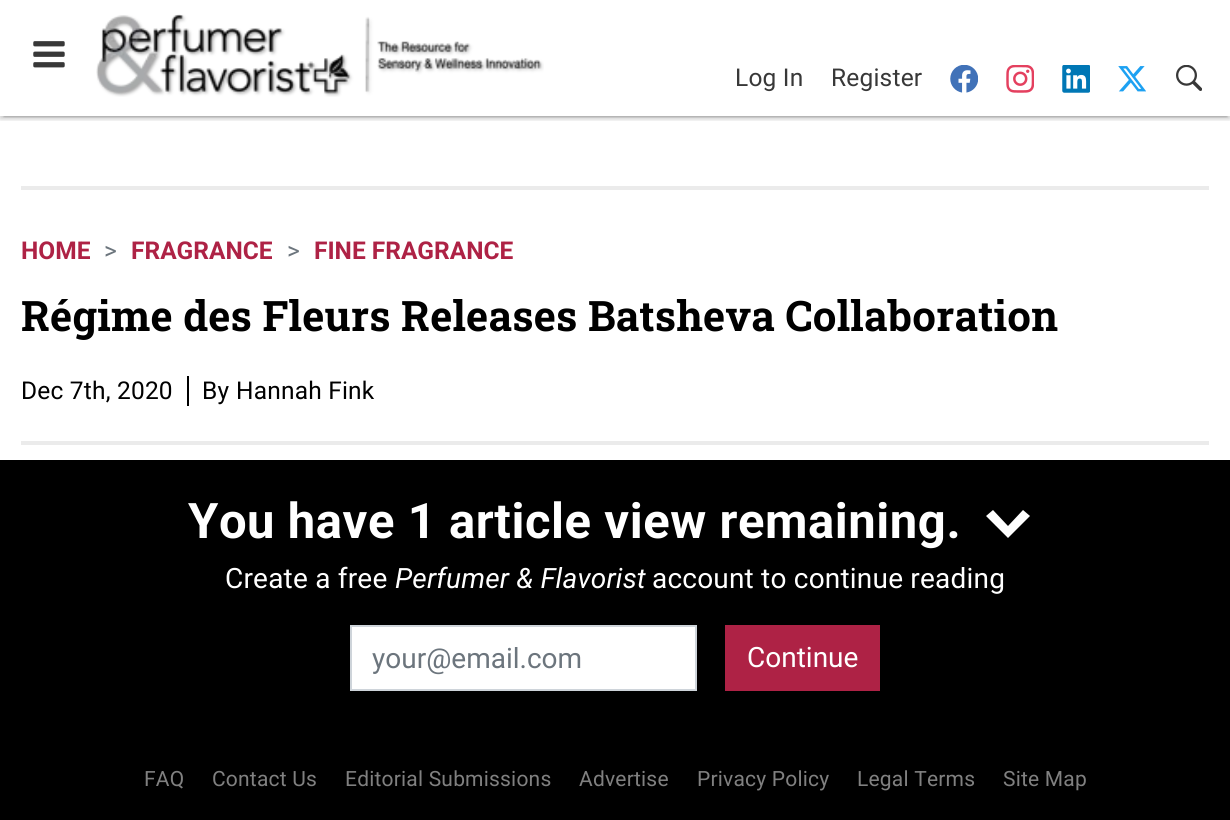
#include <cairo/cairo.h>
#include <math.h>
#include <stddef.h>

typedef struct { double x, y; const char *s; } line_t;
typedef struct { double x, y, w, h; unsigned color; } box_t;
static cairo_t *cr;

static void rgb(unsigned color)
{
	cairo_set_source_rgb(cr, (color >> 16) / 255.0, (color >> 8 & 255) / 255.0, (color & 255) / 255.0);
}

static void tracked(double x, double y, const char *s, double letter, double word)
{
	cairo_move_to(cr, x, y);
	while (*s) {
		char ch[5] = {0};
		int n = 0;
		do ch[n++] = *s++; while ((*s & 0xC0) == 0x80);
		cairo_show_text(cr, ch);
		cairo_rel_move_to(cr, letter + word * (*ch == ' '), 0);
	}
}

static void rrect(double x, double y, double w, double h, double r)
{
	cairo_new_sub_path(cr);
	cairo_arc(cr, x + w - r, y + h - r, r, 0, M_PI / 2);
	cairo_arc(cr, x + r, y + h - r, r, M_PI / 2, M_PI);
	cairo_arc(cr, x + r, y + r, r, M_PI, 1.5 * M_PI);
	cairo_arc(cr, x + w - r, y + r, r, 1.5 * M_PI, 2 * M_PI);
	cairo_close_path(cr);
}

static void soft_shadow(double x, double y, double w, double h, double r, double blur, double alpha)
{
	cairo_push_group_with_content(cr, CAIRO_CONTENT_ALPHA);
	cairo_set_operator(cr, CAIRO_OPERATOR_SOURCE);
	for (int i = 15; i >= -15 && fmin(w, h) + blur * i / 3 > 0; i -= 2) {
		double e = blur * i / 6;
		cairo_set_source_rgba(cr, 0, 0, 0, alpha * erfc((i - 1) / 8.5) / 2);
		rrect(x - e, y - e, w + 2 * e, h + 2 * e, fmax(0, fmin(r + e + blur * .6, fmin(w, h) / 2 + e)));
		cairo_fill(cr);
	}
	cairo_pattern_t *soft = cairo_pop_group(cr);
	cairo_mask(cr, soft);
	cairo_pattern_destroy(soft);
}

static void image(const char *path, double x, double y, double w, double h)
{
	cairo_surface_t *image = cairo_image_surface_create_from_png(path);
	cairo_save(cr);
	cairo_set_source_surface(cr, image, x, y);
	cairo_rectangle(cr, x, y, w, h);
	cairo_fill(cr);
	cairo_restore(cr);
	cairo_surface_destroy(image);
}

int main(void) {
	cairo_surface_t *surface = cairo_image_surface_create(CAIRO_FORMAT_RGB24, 1230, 820);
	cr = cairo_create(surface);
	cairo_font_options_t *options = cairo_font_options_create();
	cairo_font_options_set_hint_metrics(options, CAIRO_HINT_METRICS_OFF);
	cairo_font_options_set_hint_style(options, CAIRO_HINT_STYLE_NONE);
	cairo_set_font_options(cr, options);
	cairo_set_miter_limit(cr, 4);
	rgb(0xffffff);
	cairo_paint(cr);
	cairo_save(cr);
	cairo_rectangle(cr, 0, 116, 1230, 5);
	cairo_clip(cr);
	rgb(0x000000);
	soft_shadow(0, 2, 1230, 115, 0, 4.5, 0.12);
	cairo_restore(cr);
	cairo_save(cr);
	cairo_rectangle(cr, 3, 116, 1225, 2);
	cairo_clip(cr);
	rgb(0x000000);
	soft_shadow(4, 9, 1223, 108, 0, 1, 0.2);
	cairo_restore(cr);
	cairo_save(cr);
	cairo_rectangle(cr, 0, 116, 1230, 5);
	cairo_clip(cr);
	rgb(0x000000);
	soft_shadow(0, 4, 1230, 115, 0, 2, 0.14);
	cairo_restore(cr);
	image("img/1.png", 33, 41, 32, 27);
	image("img/2.png", 96, 14, 448, 83);
	image("img/3.png", 950, 65, 28, 28);
	image("img/4.png", 1006, 65, 28, 28);
	image("img/5.png", 1062, 65, 28, 28);
	image("img/6.png", 1118, 66, 28, 26);
	image("img/7.png", 1176, 65, 26, 26);
	{
		static const box_t items[] = {
			{0, 115, 1230, 1, 0xffffff},
			{21, 186, 1188, 4, 0xebebeb},
			{21, 441, 1188, 4, 0xebebeb},
			{187, 376, 2, 30, 0x000000},
			{0, 460, 1230, 360, 0x000000},
		};
		for (size_t i = 0; i < sizeof items / sizeof *items; i++) {
			rgb(items[i].color);
			cairo_rectangle(cr, items[i].x, items[i].y, items[i].w, items[i].h);
			cairo_fill(cr);
		}
	}
	rgb(0xffffff);
	cairo_set_fill_rule(cr, CAIRO_FILL_RULE_EVEN_ODD);
	cairo_new_path(cr);
	cairo_move_to(cr, 1008, 538);
	cairo_line_to(cr, 986, 516);
	cairo_line_to(cr, 993, 510);
	cairo_line_to(cr, 1008, 526);
	cairo_line_to(cr, 1023, 510);
	cairo_line_to(cr, 1030, 516);
	cairo_close_path(cr);
	cairo_fill(cr);
	cairo_rectangle(cr, 351, 626, 345, 64);
	cairo_fill_preserve(cr);
	rgb(0xced4da);
	cairo_stroke(cr);
	rgb(0xae2245);
	cairo_rectangle(cr, 725, 625, 155, 66);
	cairo_fill(cr);
	cairo_select_font_face(cr, "Roboto", CAIRO_FONT_SLANT_NORMAL, CAIRO_FONT_WEIGHT_NORMAL);
	cairo_set_font_size(cr, 24.5);
	rgb(0x383838);
	tracked(735, 86, "Log In", 0.2, 0);
	tracked(831, 86, "Register", 0.2, 0);
	cairo_select_font_face(cr, "Roboto", CAIRO_FONT_SLANT_NORMAL, CAIRO_FONT_WEIGHT_BOLD);
	rgb(0xae2245);
	cairo_move_to(cr, 21, 259);
	cairo_show_text(cr, "HOME");
	cairo_select_font_face(cr, "Roboto", CAIRO_FONT_SLANT_NORMAL, CAIRO_FONT_WEIGHT_NORMAL);
	rgb(0x6c757d);
	cairo_move_to(cr, 104, 259);
	cairo_show_text(cr, ">");
	cairo_select_font_face(cr, "Roboto", CAIRO_FONT_SLANT_NORMAL, CAIRO_FONT_WEIGHT_BOLD);
	rgb(0xae2245);
	cairo_move_to(cr, 131, 259);
	cairo_show_text(cr, "FRAGRANCE");
	cairo_select_font_face(cr, "Roboto", CAIRO_FONT_SLANT_NORMAL, CAIRO_FONT_WEIGHT_NORMAL);
	rgb(0x6c757d);
	cairo_move_to(cr, 287, 259);
	cairo_show_text(cr, ">");
	cairo_select_font_face(cr, "Roboto", CAIRO_FONT_SLANT_NORMAL, CAIRO_FONT_WEIGHT_BOLD);
	rgb(0xae2245);
	cairo_move_to(cr, 314, 259);
	cairo_show_text(cr, "FINE FRAGRANCE");
	cairo_select_font_face(cr, "Roboto Slab", CAIRO_FONT_SLANT_NORMAL, CAIRO_FONT_WEIGHT_BOLD);
	cairo_set_font_size(cr, 42);
	rgb(0x000000);
	tracked(21, 331, "Régime des Fleurs Releases Batsheva Collaboration", 0.2, 0);
	cairo_select_font_face(cr, "Roboto", CAIRO_FONT_SLANT_NORMAL, CAIRO_FONT_WEIGHT_NORMAL);
	cairo_set_font_size(cr, 24.5);
	{
		static const line_t items[] = {
			{21, 399, "Dec 7th, 2020"},
			{202, 399, "By"},
			{236, 399, "Hannah Fink"},
		};
		for (size_t i = 0; i < sizeof items / sizeof *items; i++) {
			tracked(items[i].x, items[i].y, items[i].s, 0.2, 0);
		}
	}
	cairo_select_font_face(cr, "Roboto", CAIRO_FONT_SLANT_NORMAL, CAIRO_FONT_WEIGHT_BOLD);
	cairo_set_font_size(cr, 49);
	rgb(0xffffff);
	tracked(188, 538, "You have 1 article view remaining.", 0.55, 0);
	cairo_select_font_face(cr, "Roboto", CAIRO_FONT_SLANT_NORMAL, CAIRO_FONT_WEIGHT_NORMAL);
	cairo_set_font_size(cr, 28);
	tracked(225, 588, "Create a free", 0.2, 0);
	cairo_select_font_face(cr, "Roboto", CAIRO_FONT_SLANT_ITALIC, CAIRO_FONT_WEIGHT_NORMAL);
	tracked(395, 588, "Perfumer & Flavorist", 0.2, 0);
	cairo_select_font_face(cr, "Roboto", CAIRO_FONT_SLANT_NORMAL, CAIRO_FONT_WEIGHT_NORMAL);
	tracked(652, 588, "account to continue reading", 0.2, 0);
	rgb(0x6c757d);
	cairo_move_to(cr, 372, 668);
	cairo_show_text(cr, "your@email.com");
	rgb(0xffffff);
	cairo_move_to(cr, 747, 667);
	cairo_show_text(cr, "Continue");
	cairo_set_font_size(cr, 21);
	rgb(0x808080);
	{
		static const line_t items[] = {
			{144, 786, "FAQ"},
			{212, 786, "Contact Us"},
			{345, 786, "Editorial Submissions"},
			{579, 786, "Advertise"},
			{697, 786, "Privacy Policy"},
			{857, 786, "Legal Terms"},
			{1003, 786, "Site Map"},
		};
		for (size_t i = 0; i < sizeof items / sizeof *items; i++) {
			tracked(items[i].x, items[i].y, items[i].s, 0.2, 0);
		}
	}
	cairo_surface_write_to_png(surface, "page.png");
	cairo_font_options_destroy(options);
	cairo_destroy(cr);
	cairo_surface_destroy(surface);
	return 0;
}
